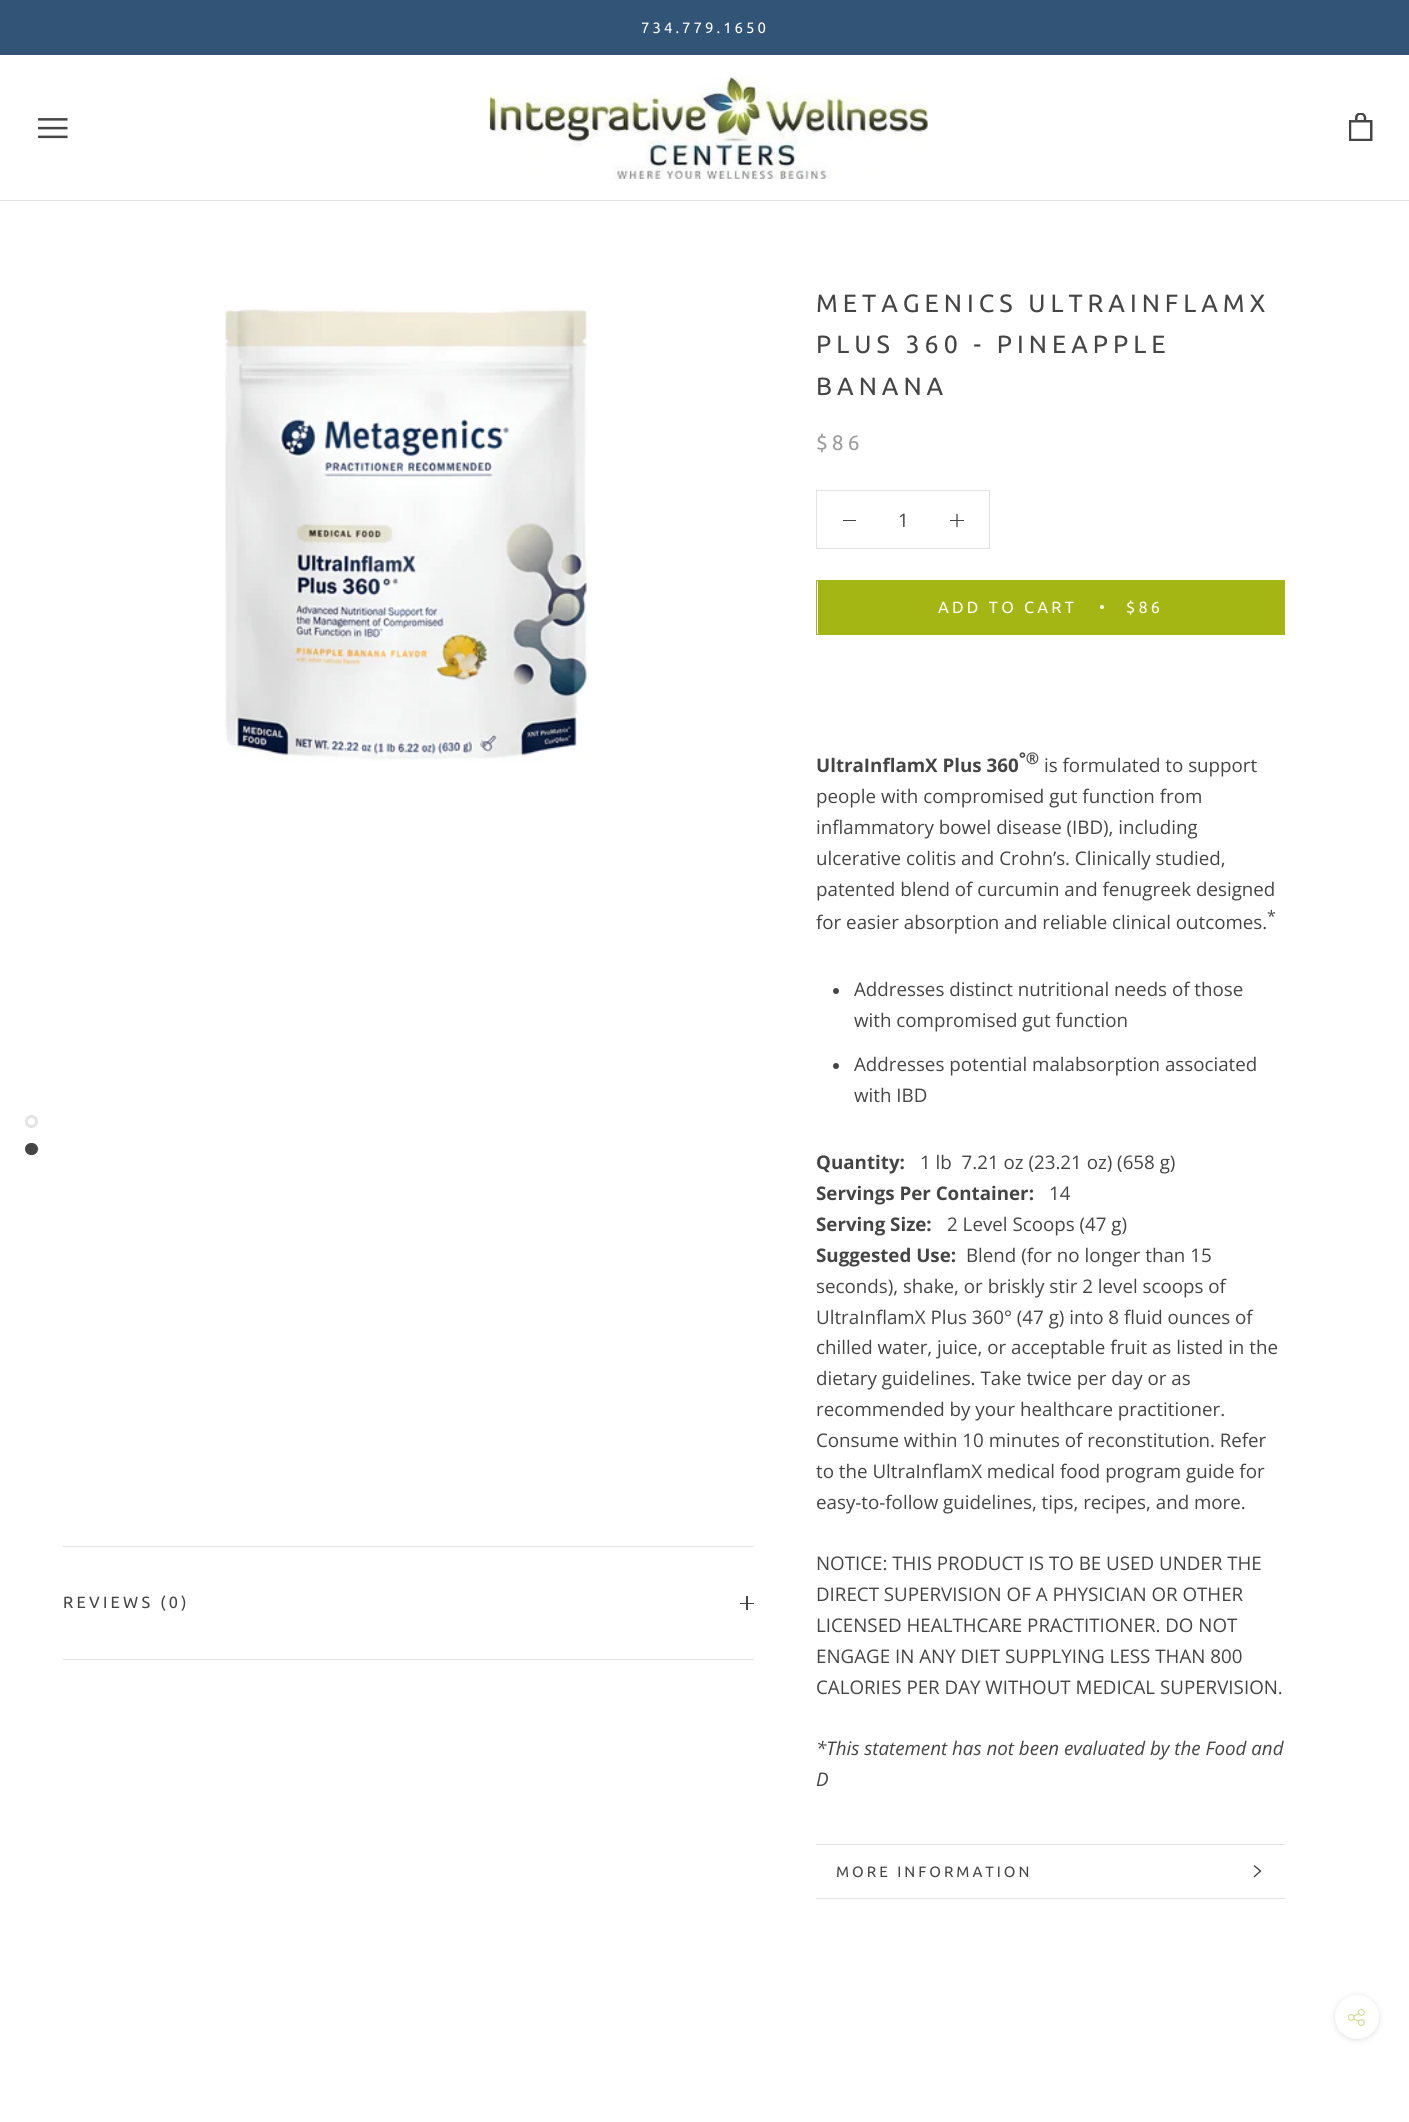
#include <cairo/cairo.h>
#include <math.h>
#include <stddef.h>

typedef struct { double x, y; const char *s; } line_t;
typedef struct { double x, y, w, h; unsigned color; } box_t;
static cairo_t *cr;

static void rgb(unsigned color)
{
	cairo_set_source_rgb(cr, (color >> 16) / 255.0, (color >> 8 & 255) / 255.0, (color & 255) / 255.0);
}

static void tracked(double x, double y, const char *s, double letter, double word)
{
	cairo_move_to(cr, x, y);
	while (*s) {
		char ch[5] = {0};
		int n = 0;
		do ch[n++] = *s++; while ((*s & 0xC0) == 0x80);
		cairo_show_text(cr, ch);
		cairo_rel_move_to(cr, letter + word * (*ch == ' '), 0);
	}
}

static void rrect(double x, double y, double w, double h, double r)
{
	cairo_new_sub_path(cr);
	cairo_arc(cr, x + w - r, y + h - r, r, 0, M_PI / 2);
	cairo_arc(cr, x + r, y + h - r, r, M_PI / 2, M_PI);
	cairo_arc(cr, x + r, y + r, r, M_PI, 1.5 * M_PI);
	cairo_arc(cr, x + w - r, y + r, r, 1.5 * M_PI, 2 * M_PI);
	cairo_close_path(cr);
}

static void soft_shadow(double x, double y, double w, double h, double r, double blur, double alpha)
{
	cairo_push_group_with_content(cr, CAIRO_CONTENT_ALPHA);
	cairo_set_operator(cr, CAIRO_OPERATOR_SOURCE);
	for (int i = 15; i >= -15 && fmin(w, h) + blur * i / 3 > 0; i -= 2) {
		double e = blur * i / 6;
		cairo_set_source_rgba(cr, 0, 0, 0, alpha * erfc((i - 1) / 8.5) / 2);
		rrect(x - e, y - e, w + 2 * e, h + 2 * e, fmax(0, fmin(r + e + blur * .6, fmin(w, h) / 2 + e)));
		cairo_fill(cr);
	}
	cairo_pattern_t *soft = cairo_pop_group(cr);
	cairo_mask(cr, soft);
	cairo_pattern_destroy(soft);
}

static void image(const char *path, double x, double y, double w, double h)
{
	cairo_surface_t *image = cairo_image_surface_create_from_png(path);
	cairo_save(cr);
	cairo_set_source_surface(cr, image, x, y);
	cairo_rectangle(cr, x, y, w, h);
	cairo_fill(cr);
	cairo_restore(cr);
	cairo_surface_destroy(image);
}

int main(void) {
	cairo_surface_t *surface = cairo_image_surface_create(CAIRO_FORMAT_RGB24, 1409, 2122);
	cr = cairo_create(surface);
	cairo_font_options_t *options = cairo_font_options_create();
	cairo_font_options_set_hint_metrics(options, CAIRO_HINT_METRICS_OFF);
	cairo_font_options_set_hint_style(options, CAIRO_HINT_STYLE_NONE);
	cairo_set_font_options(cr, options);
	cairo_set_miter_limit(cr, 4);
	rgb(0xffffff);
	cairo_paint(cr);
	rgb(0x325476);
	cairo_rectangle(cr, 0, 0, 1409, 55);
	cairo_fill(cr);
	rgb(0xe3e3e3);
	cairo_rectangle(cr, 0, 200, 1409, 1);
	cairo_fill(cr);
	image("img/1.png", 38, 118, 30, 21);
	image("img/2.png", 489, 77, 439, 102);
	image("img/3.png", 1349, 113, 24, 28);
	image("img/4.png", 224, 308, 368, 454);
	cairo_arc(cr, 31.5, 1121.5, 5, 0, 2 * M_PI);
	cairo_set_line_width(cr, 3);
	cairo_stroke(cr);
	rgb(0x454545);
	rrect(26.5, 1144.5, 10, 9, 4.5);
	cairo_fill_preserve(cr);
	cairo_stroke(cr);
	cairo_rectangle(cr, 816.5, 490.5, 173, 58);
	rgb(0xe3e3e3);
	cairo_set_line_width(cr, 1);
	cairo_stroke(cr);
	rgb(0x454545);
	cairo_rectangle(cr, 843, 520, 13, 1);
	cairo_fill(cr);
	cairo_new_path(cr);
	cairo_move_to(cr, 957, 514.5);
	cairo_line_to(cr, 957, 526.5);
	cairo_set_line_width(cr, 1.3);
	cairo_set_line_cap(cr, CAIRO_LINE_CAP_SQUARE);
	cairo_stroke(cr);
	cairo_rectangle(cr, 950, 520, 14, 1);
	cairo_fill(cr);
	cairo_rectangle(cr, 816.5, 580.5, 468, 54);
	rgb(0xa3b613);
	cairo_set_line_width(cr, 1);
	cairo_set_line_cap(cr, CAIRO_LINE_CAP_BUTT);
	cairo_stroke(cr);
	cairo_rectangle(cr, 818, 581, 466, 53);
	cairo_fill(cr);
	rgb(0xffffff);
	cairo_arc(cr, 1102, 607, 2, 0, 2 * M_PI);
	cairo_fill(cr);
	rgb(0x454545);
	cairo_arc(cr, 836, 991, 3, 0, 2 * M_PI);
	cairo_fill(cr);
	cairo_arc(cr, 836, 1066, 3, 0, 2 * M_PI);
	cairo_fill(cr);
	rgb(0xe3e3e3);
	cairo_rectangle(cr, 816, 1844, 469, 1);
	cairo_fill(cr);
	cairo_rectangle(cr, 816, 1898, 469, 1);
	cairo_fill(cr);
	cairo_new_path(cr);
	cairo_move_to(cr, 1254.5, 1866);
	cairo_line_to(cr, 1260.5, 1871);
	cairo_line_to(cr, 1254.5, 1876.5);
	rgb(0x454545);
	cairo_set_line_width(cr, 1.4);
	cairo_set_line_cap(cr, CAIRO_LINE_CAP_SQUARE);
	cairo_stroke(cr);
	rgb(0x363636);
	soft_shadow(1335, 1996, 44, 44, 22, 3, 0.15);
	rgb(0xffffff);
	cairo_arc(cr, 1357, 2017, 22, 0, 2 * M_PI);
	cairo_fill(cr);
	image("img/5.png", 1348, 2009, 17, 17);
	cairo_save(cr);
	rrect(1335, 1995, 44, 44, 22);
	cairo_clip(cr);
	cairo_new_path(cr);
	cairo_move_to(cr, 1364.5, 2036);
	cairo_line_to(cr, 1349, 2051.5);
	cairo_move_to(cr, 1364.5, 2051.5);
	cairo_line_to(cr, 1349, 2036);
	cairo_set_line_width(cr, 1.1);
	cairo_set_line_cap(cr, CAIRO_LINE_CAP_BUTT);
	cairo_stroke(cr);
	cairo_restore(cr);
	{
		static const box_t items[] = {
			{63, 1546, 691, 1, 0xe3e3e3},
			{63, 1659, 691, 1, 0xe3e3e3},
			{746, 1596, 2, 14, 0x454545},
			{740, 1603, 14, 1, 0x454545},
		};
		for (size_t i = 0; i < sizeof items / sizeof *items; i++) {
			rgb(items[i].color);
			cairo_rectangle(cr, items[i].x, items[i].y, items[i].w, items[i].h);
			cairo_fill(cr);
		}
	}
	cairo_select_font_face(cr, "Ubuntu", CAIRO_FONT_SLANT_NORMAL, CAIRO_FONT_WEIGHT_NORMAL);
	cairo_set_font_size(cr, 15);
	rgb(0xffffff);
	tracked(641, 33, "734.779.1650", 3, 0);
	cairo_set_font_size(cr, 25);
	rgb(0x454545);
	{
		static const line_t items[] = {
			{816, 312, "METAGENICS ULTRAINFLAMX"},
			{816, 353, "PLUS 360 - PINEAPPLE"},
			{816, 395, "BANANA"},
		};
		for (size_t i = 0; i < sizeof items / sizeof *items; i++) {
			tracked(items[i].x, items[i].y, items[i].s, 5, 0);
		}
	}
	cairo_set_font_size(cr, 21);
	rgb(0x9d9d9d);
	tracked(816, 450, "$86", 4, 0);
	cairo_select_font_face(cr, "Open Sans", CAIRO_FONT_SLANT_NORMAL, CAIRO_FONT_WEIGHT_NORMAL);
	cairo_set_font_size(cr, 18.75);
	rgb(0x454545);
	cairo_move_to(cr, 898, 527);
	cairo_show_text(cr, "1");
	cairo_select_font_face(cr, "Ubuntu", CAIRO_FONT_SLANT_NORMAL, CAIRO_FONT_WEIGHT_NORMAL);
	cairo_set_font_size(cr, 16.25);
	rgb(0xffffff);
	tracked(938, 613, "ADD TO CART", 3.25, 0);
	tracked(1126, 613, "$86", 3.25, 0);
	cairo_select_font_face(cr, "Open Sans", CAIRO_FONT_SLANT_NORMAL, CAIRO_FONT_WEIGHT_BOLD);
	cairo_set_font_size(cr, 18.75);
	rgb(0x454545);
	cairo_move_to(cr, 816, 772);
	cairo_show_text(cr, "UltraInflamX Plus 360");
	cairo_set_font_size(cr, 16);
	cairo_move_to(cr, 1019, 764);
	cairo_show_text(cr, "°®");
	cairo_select_font_face(cr, "Open Sans", CAIRO_FONT_SLANT_NORMAL, CAIRO_FONT_WEIGHT_NORMAL);
	cairo_set_font_size(cr, 18.75);
	{
		static const line_t items[] = {
			{1044, 772, "is formulated to support"},
			{816, 803, "people with compromised gut function from"},
			{816, 834, "inflammatory bowel disease (IBD), including"},
			{816, 865, "ulcerative colitis and Crohn’s. Clinically studied,"},
			{816, 896, "patented blend of curcumin and fenugreek designed"},
			{816, 929, "for easier absorption and reliable clinical outcomes."},
		};
		for (size_t i = 0; i < sizeof items / sizeof *items; i++) {
			cairo_move_to(cr, items[i].x, items[i].y);
			cairo_show_text(cr, items[i].s);
		}
	}
	cairo_set_font_size(cr, 16);
	cairo_move_to(cr, 1267, 922);
	cairo_show_text(cr, "*");
	cairo_set_font_size(cr, 18.75);
	{
		static const line_t items[] = {
			{854, 996, "Addresses distinct nutritional needs of those"},
			{854, 1027, "with compromised gut function"},
			{854, 1071, "Addresses potential malabsorption associated"},
			{854, 1102, "with IBD"},
		};
		for (size_t i = 0; i < sizeof items / sizeof *items; i++) {
			cairo_move_to(cr, items[i].x, items[i].y);
			cairo_show_text(cr, items[i].s);
		}
	}
	cairo_select_font_face(cr, "Open Sans", CAIRO_FONT_SLANT_NORMAL, CAIRO_FONT_WEIGHT_BOLD);
	cairo_move_to(cr, 816, 1169);
	cairo_show_text(cr, "Quantity:");
	cairo_select_font_face(cr, "Open Sans", CAIRO_FONT_SLANT_NORMAL, CAIRO_FONT_WEIGHT_NORMAL);
	cairo_move_to(cr, 920, 1169);
	cairo_show_text(cr, "1 lb  7.21 oz (23.21 oz) (658 g)");
	cairo_select_font_face(cr, "Open Sans", CAIRO_FONT_SLANT_NORMAL, CAIRO_FONT_WEIGHT_BOLD);
	cairo_move_to(cr, 816, 1200);
	cairo_show_text(cr, "Servings Per Container:");
	cairo_select_font_face(cr, "Open Sans", CAIRO_FONT_SLANT_NORMAL, CAIRO_FONT_WEIGHT_NORMAL);
	cairo_move_to(cr, 1049, 1200);
	cairo_show_text(cr, "14");
	cairo_select_font_face(cr, "Open Sans", CAIRO_FONT_SLANT_NORMAL, CAIRO_FONT_WEIGHT_BOLD);
	cairo_move_to(cr, 816, 1231);
	cairo_show_text(cr, "Serving Size:");
	cairo_select_font_face(cr, "Open Sans", CAIRO_FONT_SLANT_NORMAL, CAIRO_FONT_WEIGHT_NORMAL);
	cairo_move_to(cr, 947, 1231);
	cairo_show_text(cr, "2 Level Scoops (47 g)");
	cairo_select_font_face(cr, "Open Sans", CAIRO_FONT_SLANT_NORMAL, CAIRO_FONT_WEIGHT_BOLD);
	cairo_move_to(cr, 816, 1262);
	cairo_show_text(cr, "Suggested Use:");
	cairo_select_font_face(cr, "Open Sans", CAIRO_FONT_SLANT_NORMAL, CAIRO_FONT_WEIGHT_NORMAL);
	{
		static const line_t items[] = {
			{966, 1262, "Blend (for no longer than 15"},
			{816, 1293, "seconds), shake, or briskly stir 2 level scoops of"},
			{816, 1324, "UltraInflamX Plus 360° (47 g) into 8 fluid ounces of"},
			{816, 1354, "chilled water, juice, or acceptable fruit as listed in the"},
			{816, 1385, "dietary guidelines. Take twice per day or as"},
			{816, 1416, "recommended by your healthcare practitioner."},
			{816, 1447, "Consume within 10 minutes of reconstitution. Refer"},
			{816, 1478, "to the UltraInflamX medical food program guide for"},
			{816, 1509, "easy-to-follow guidelines, tips, recipes, and more."},
			{816, 1570, "NOTICE: THIS PRODUCT IS TO BE USED UNDER THE"},
			{816, 1601, "DIRECT SUPERVISION OF A PHYSICIAN OR OTHER"},
			{816, 1632, "LICENSED HEALTHCARE PRACTITIONER. DO NOT"},
			{816, 1663, "ENGAGE IN ANY DIET SUPPLYING LESS THAN 800"},
			{816, 1694, "CALORIES PER DAY WITHOUT MEDICAL SUPERVISION."},
		};
		for (size_t i = 0; i < sizeof items / sizeof *items; i++) {
			cairo_move_to(cr, items[i].x, items[i].y);
			cairo_show_text(cr, items[i].s);
		}
	}
	cairo_select_font_face(cr, "Open Sans", CAIRO_FONT_SLANT_ITALIC, CAIRO_FONT_WEIGHT_NORMAL);
	cairo_move_to(cr, 816, 1755);
	cairo_show_text(cr, "*This statement has not been evaluated by the Food and");
	cairo_move_to(cr, 816, 1786);
	cairo_show_text(cr, "D");
	cairo_select_font_face(cr, "Ubuntu", CAIRO_FONT_SLANT_NORMAL, CAIRO_FONT_WEIGHT_NORMAL);
	cairo_set_font_size(cr, 15);
	tracked(836, 1877, "MORE INFORMATION", 3, 0);
	cairo_set_font_size(cr, 16.25);
	tracked(63, 1608, "REVIEWS (0)", 3.25, 0);
	cairo_surface_write_to_png(surface, "page.png");
	cairo_font_options_destroy(options);
	cairo_destroy(cr);
	cairo_surface_destroy(surface);
	return 0;
}
